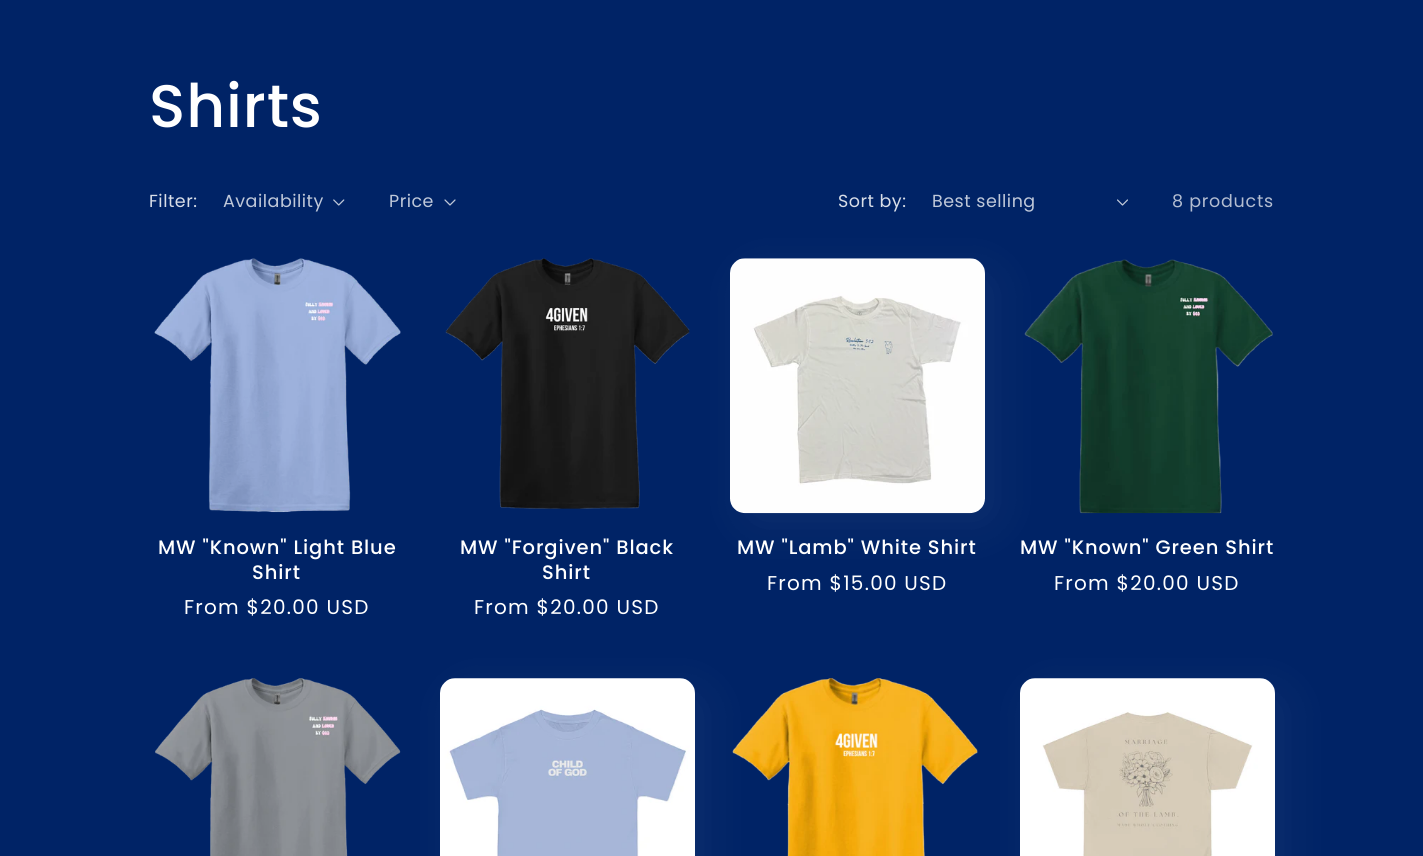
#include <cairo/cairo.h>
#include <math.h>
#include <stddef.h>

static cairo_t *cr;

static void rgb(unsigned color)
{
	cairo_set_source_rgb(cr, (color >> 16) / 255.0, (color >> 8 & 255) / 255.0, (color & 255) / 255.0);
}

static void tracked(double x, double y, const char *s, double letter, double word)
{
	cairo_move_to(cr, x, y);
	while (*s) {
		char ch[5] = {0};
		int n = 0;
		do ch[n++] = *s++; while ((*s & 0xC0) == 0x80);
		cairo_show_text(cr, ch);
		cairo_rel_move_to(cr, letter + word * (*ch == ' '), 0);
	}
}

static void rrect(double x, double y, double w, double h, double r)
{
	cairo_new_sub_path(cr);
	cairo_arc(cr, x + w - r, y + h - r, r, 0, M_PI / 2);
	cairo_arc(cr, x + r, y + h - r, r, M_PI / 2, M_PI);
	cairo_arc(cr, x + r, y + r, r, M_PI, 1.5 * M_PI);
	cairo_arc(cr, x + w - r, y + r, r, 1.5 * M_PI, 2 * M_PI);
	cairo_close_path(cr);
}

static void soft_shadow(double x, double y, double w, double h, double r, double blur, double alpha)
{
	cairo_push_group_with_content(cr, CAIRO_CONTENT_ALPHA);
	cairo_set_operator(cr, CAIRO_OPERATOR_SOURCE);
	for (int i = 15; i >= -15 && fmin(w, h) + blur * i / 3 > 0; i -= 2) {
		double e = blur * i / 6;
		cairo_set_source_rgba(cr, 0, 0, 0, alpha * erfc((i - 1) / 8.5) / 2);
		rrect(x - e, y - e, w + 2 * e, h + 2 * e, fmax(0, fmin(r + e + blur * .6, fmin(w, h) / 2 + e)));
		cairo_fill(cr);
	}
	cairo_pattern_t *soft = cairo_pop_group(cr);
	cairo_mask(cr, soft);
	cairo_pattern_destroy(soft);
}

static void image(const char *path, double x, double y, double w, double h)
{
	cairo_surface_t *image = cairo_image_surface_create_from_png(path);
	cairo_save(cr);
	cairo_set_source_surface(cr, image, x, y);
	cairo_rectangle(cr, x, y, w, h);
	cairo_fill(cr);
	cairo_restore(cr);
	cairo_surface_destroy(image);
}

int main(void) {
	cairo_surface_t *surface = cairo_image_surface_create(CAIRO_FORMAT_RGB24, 1423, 856);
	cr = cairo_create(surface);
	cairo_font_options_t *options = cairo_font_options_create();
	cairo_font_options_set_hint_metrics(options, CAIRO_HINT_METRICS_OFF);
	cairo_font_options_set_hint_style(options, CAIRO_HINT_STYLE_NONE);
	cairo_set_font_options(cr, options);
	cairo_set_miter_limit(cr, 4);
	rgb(0x002366);
	cairo_paint(cr);
	image("img/1.png", 333, 199, 12, 7);
	image("img/2.png", 444, 199, 12, 7);
	image("img/3.png", 1117, 199, 11, 7);
	image("img/4.png", 154, 258, 247, 255);
	image("img/5.png", 445, 258, 245, 251);
	rgb(0xffffff);
	soft_shadow(743, 271, 255, 255, 15, 22, 0.05);
	image("img/6.png", 730, 258, 255, 256);
	image("img/7.png", 1024, 259, 249, 255);
	image("img/8.png", 155, 678, 246, 178);
	soft_shadow(453, 691, 255, 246, 15, 22, 0.05);
	image("img/9.png", 440, 678, 255, 178);
	image("img/10.png", 732, 678, 246, 178);
	soft_shadow(1033, 691, 255, 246, 15, 22, 0.05);
	image("img/11.png", 1020, 678, 255, 178);
	cairo_select_font_face(cr, "Poppins Medium", CAIRO_FONT_SLANT_NORMAL, CAIRO_FONT_WEIGHT_NORMAL);
	cairo_set_font_size(cr, 60);
	rgb(0xffffff);
	tracked(149, 127, "Shirts", 0.9, 0);
	cairo_select_font_face(cr, "Poppins", CAIRO_FONT_SLANT_NORMAL, CAIRO_FONT_WEIGHT_NORMAL);
	cairo_set_font_size(cr, 17.5);
	rgb(0xd9dee8);
	tracked(149, 207, "Filter:", 0.5, 0);
	rgb(0xbfc8d9);
	tracked(223, 207, "Availability", 0.5, 0);
	tracked(389, 207, "Price", 0.5, 0);
	rgb(0xd9dee8);
	tracked(838, 207, "Sort by:", 0.5, 0);
	rgb(0xbfc8d9);
	tracked(932, 207, "Best selling", 0.5, 0);
	rgb(0xb3bdd1);
	tracked(1172, 207, "8 products", 0.75, 0);
	cairo_select_font_face(cr, "Poppins Medium", CAIRO_FONT_SLANT_NORMAL, CAIRO_FONT_WEIGHT_NORMAL);
	cairo_set_font_size(cr, 19.5);
	rgb(0xffffff);
	tracked(158, 554, "MW \"Known\" Light Blue", 0.9, 0);
	tracked(252, 579, "Shirt", 0.9, 0);
	cairo_select_font_face(cr, "Poppins", CAIRO_FONT_SLANT_NORMAL, CAIRO_FONT_WEIGHT_NORMAL);
	cairo_set_font_size(cr, 20);
	tracked(184, 614, "From $20.00 USD", 1.25, 0);
	cairo_select_font_face(cr, "Poppins Medium", CAIRO_FONT_SLANT_NORMAL, CAIRO_FONT_WEIGHT_NORMAL);
	cairo_set_font_size(cr, 19.5);
	tracked(460, 554, "MW \"Forgiven\" Black", 0.9, 0);
	tracked(542, 579, "Shirt", 0.9, 0);
	cairo_select_font_face(cr, "Poppins", CAIRO_FONT_SLANT_NORMAL, CAIRO_FONT_WEIGHT_NORMAL);
	cairo_set_font_size(cr, 20);
	tracked(474, 614, "From $20.00 USD", 1.25, 0);
	cairo_select_font_face(cr, "Poppins Medium", CAIRO_FONT_SLANT_NORMAL, CAIRO_FONT_WEIGHT_NORMAL);
	cairo_set_font_size(cr, 19.5);
	tracked(737, 554, "MW \"Lamb\" White Shirt", 0.9, 0);
	cairo_select_font_face(cr, "Poppins", CAIRO_FONT_SLANT_NORMAL, CAIRO_FONT_WEIGHT_NORMAL);
	cairo_set_font_size(cr, 20);
	tracked(767, 590, "From $15.00 USD", 1.25, 0);
	cairo_select_font_face(cr, "Poppins Medium", CAIRO_FONT_SLANT_NORMAL, CAIRO_FONT_WEIGHT_NORMAL);
	cairo_set_font_size(cr, 19.5);
	tracked(1020, 554, "MW \"Known\" Green Shirt", 0.9, 0);
	cairo_select_font_face(cr, "Poppins", CAIRO_FONT_SLANT_NORMAL, CAIRO_FONT_WEIGHT_NORMAL);
	cairo_set_font_size(cr, 20);
	tracked(1054, 590, "From $20.00 USD", 1.25, 0);
	cairo_surface_write_to_png(surface, "page.png");
	cairo_font_options_destroy(options);
	cairo_destroy(cr);
	cairo_surface_destroy(surface);
	return 0;
}
